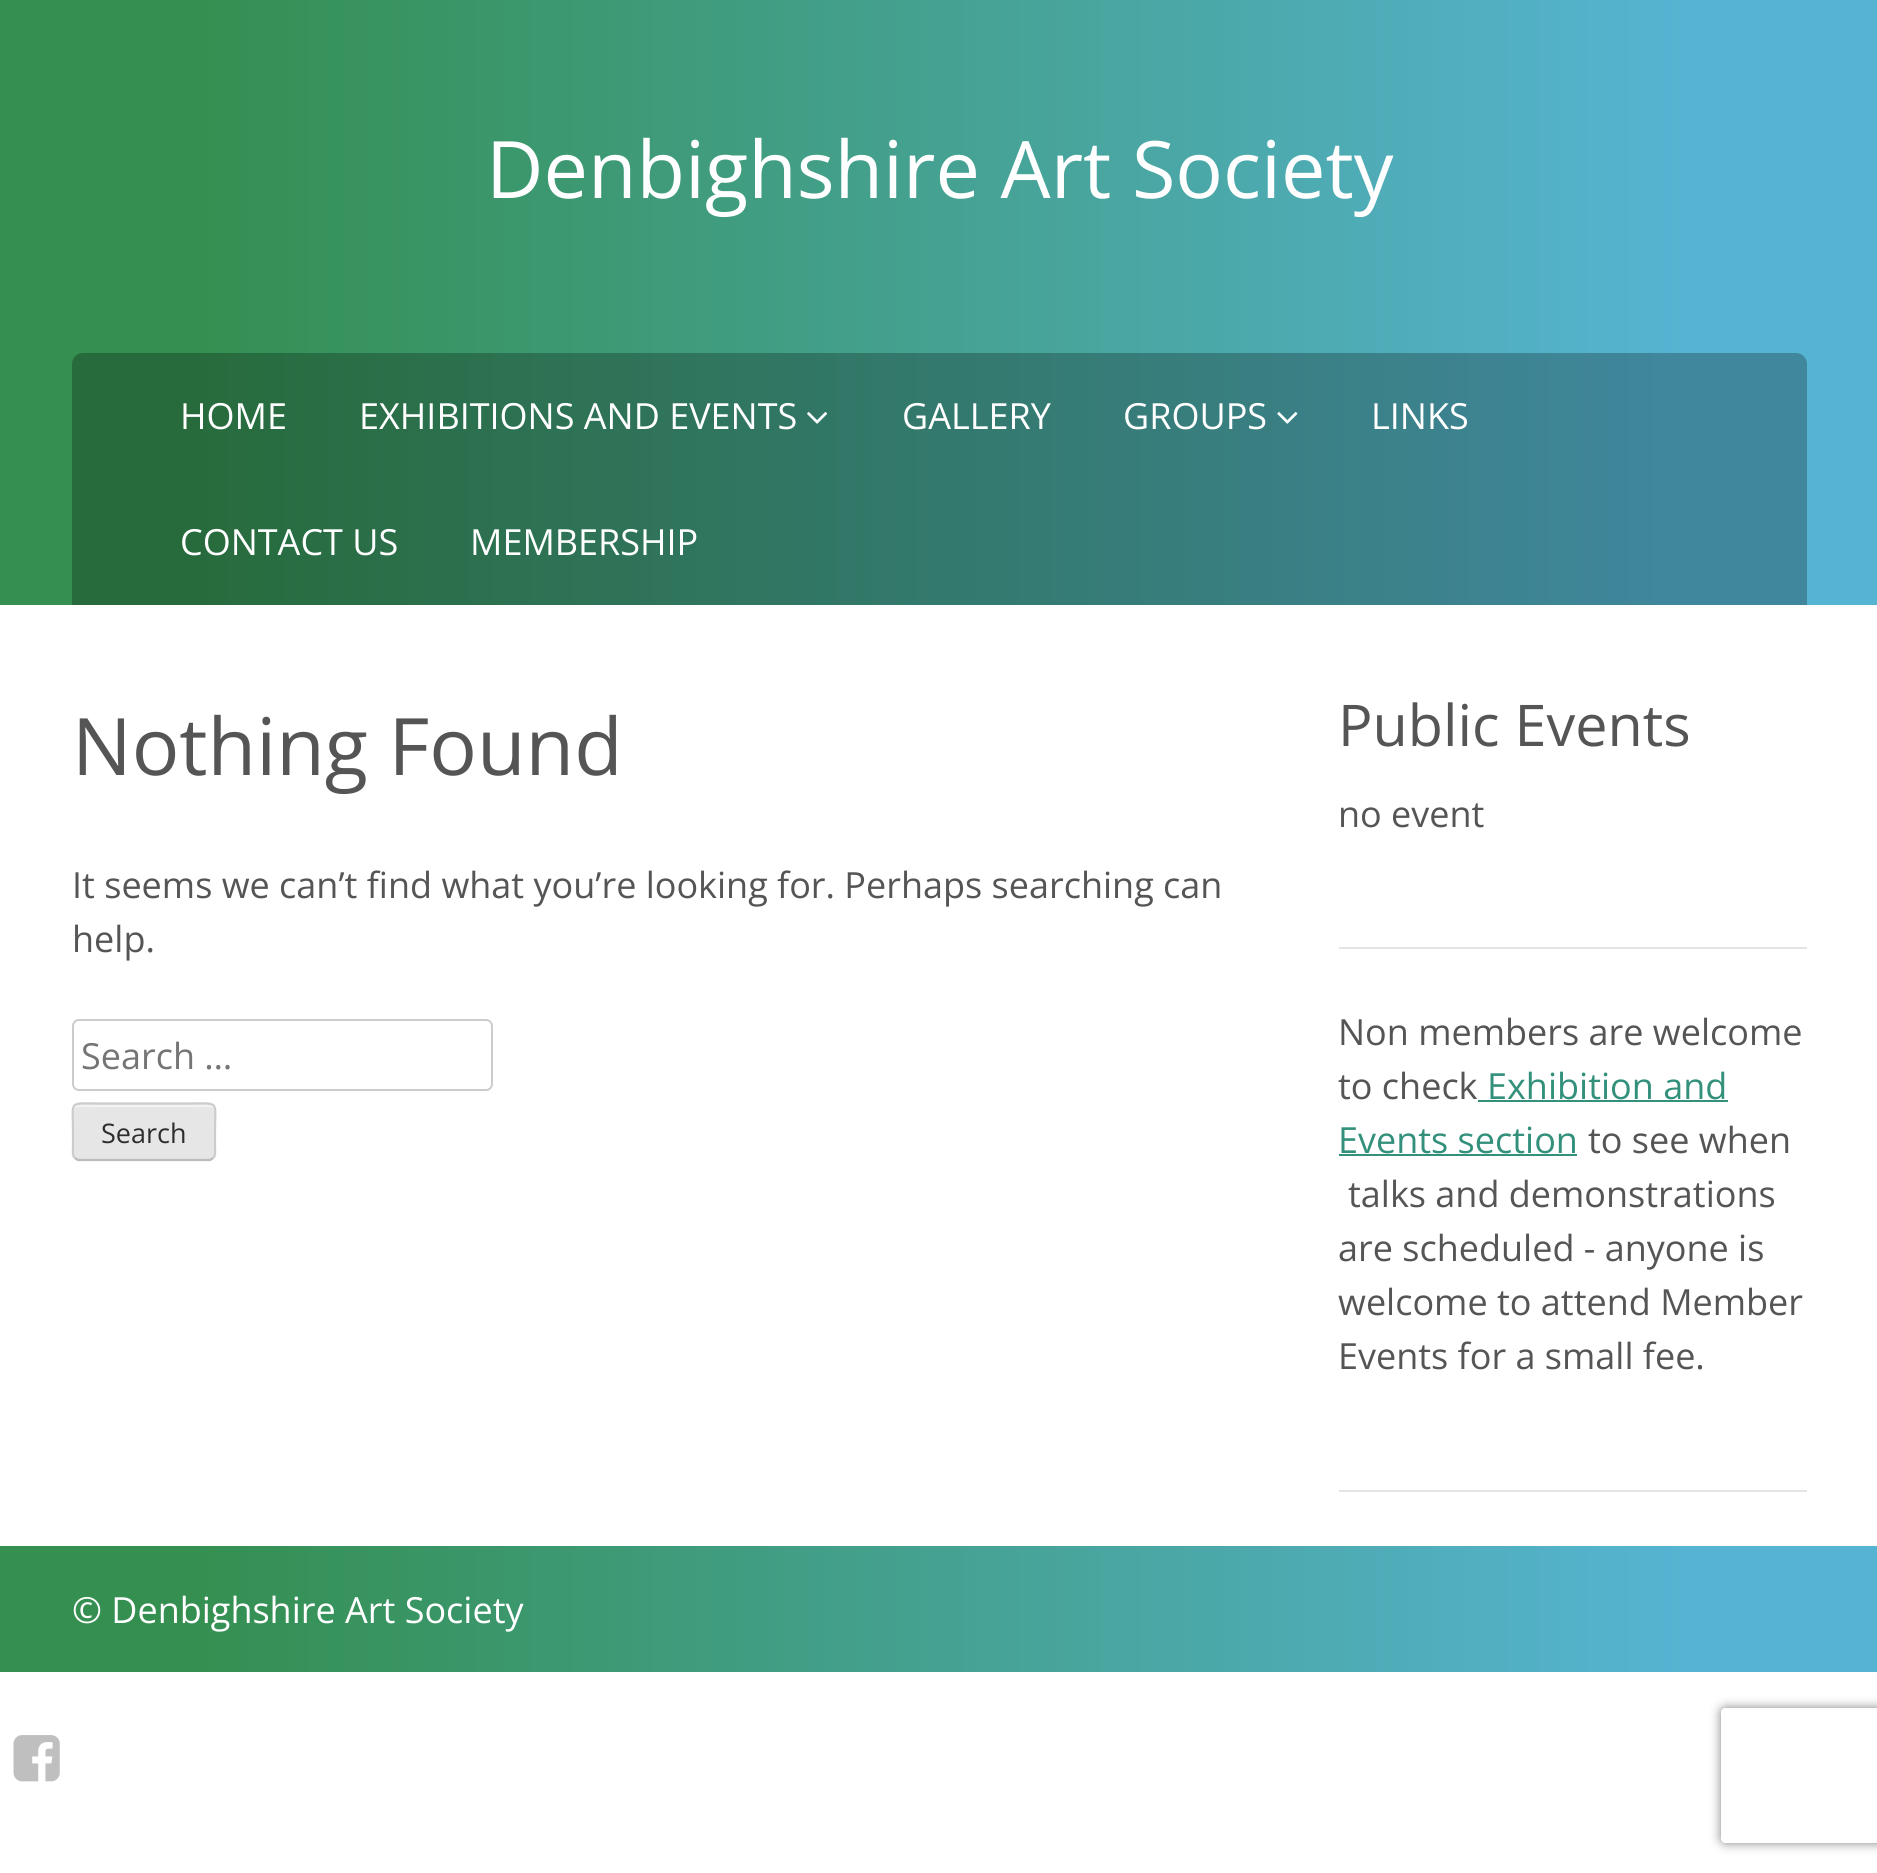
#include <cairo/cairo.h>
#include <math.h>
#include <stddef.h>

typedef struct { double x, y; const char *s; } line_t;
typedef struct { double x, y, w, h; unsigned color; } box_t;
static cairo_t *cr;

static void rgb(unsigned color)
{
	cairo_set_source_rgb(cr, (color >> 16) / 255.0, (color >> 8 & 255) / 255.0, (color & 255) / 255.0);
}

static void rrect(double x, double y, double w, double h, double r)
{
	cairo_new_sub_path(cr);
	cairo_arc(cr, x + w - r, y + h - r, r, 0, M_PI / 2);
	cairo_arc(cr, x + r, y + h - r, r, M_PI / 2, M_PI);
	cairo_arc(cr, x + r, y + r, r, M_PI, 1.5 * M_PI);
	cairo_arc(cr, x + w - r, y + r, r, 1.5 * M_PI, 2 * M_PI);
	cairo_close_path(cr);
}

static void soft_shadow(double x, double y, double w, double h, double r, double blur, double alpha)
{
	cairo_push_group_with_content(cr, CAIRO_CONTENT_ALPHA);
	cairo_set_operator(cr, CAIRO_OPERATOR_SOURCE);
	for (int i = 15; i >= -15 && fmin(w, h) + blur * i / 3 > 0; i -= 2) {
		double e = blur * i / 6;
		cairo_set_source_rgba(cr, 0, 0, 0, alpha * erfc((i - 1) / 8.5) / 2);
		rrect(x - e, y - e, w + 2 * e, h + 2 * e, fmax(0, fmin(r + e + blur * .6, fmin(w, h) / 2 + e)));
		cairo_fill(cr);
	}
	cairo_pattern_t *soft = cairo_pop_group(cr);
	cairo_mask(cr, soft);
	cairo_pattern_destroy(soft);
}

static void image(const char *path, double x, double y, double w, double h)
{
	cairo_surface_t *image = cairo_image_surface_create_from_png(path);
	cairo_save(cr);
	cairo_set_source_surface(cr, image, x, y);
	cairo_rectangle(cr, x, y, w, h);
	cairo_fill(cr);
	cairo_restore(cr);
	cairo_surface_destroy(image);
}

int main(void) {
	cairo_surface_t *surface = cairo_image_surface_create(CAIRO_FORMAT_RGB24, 1877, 1873);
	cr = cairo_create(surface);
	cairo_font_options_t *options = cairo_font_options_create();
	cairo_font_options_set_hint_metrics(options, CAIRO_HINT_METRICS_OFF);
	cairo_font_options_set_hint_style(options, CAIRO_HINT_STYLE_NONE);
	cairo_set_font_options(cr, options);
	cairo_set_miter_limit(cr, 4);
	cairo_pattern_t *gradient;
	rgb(0xffffff);
	cairo_paint(cr);
	gradient = cairo_pattern_create_linear(0, 303, 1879, 303);
	cairo_pattern_add_color_stop_rgba(gradient, 0.1, 0.204, 0.561, 0.314, 1);
	cairo_pattern_add_color_stop_rgba(gradient, 0.9, 0.337, 0.706, 0.827, 1);
	cairo_set_source(cr, gradient);
	cairo_pattern_destroy(gradient);
	cairo_rectangle(cr, 0, 0, 1877, 605);
	cairo_fill(cr);
	cairo_set_source_rgba(cr, 0, 0, 0, 0.25);
	cairo_new_path(cr);
	cairo_move_to(cr, 83, 353);
	cairo_line_to(cr, 1796, 353);
	cairo_curve_to(cr, 1802, 353, 1807, 358, 1807, 364);
	cairo_line_to(cr, 1807, 605);
	cairo_line_to(cr, 72, 605);
	cairo_line_to(cr, 72, 364);
	cairo_curve_to(cr, 72, 358, 77, 353, 83, 353);
	cairo_close_path(cr);
	cairo_fill(cr);
	image("img/1.png", 807, 412, 21, 12);
	image("img/2.png", 1277, 412, 21, 12);
	rrect(73, 1020, 419, 70, 6);
	rgb(0xcccccc);
	cairo_stroke(cr);
	rgb(0xe6e6e6);
	rrect(72, 1103, 144, 58, 7);
	cairo_fill(cr);
	rgb(0xf3f3f3);
	cairo_new_path(cr);
	cairo_move_to(cr, 79, 1107);
	cairo_line_to(cr, 209, 1107);
	cairo_curve_to(cr, 212, 1107, 214, 1109, 214, 1112);
	cairo_line_to(cr, 214, 1110);
	cairo_curve_to(cr, 214, 1107, 212, 1105, 209, 1105);
	cairo_line_to(cr, 79, 1105);
	cairo_curve_to(cr, 76, 1105, 74, 1107, 74, 1110);
	cairo_line_to(cr, 74, 1112);
	cairo_curve_to(cr, 74, 1109, 76, 1107, 79, 1107);
	cairo_close_path(cr);
	cairo_fill(cr);
	cairo_new_path(cr);
	cairo_move_to(cr, 213, 1158);
	cairo_line_to(cr, 210, 1160);
	cairo_line_to(cr, 78, 1160);
	cairo_line_to(cr, 75, 1158);
	rgb(0xbbbbbb);
	cairo_set_line_width(cr, 2.2);
	cairo_stroke(cr);
	cairo_new_path(cr);
	cairo_move_to(cr, 75, 1158);
	cairo_curve_to(cr, 72, 1155.5, 73, 1150, 73, 1147);
	cairo_line_to(cr, 73, 1132);
	cairo_curve_to(cr, 73, 1099.5, 67.5, 1103.5, 100.5, 1103.5);
	cairo_line_to(cr, 187.5, 1103.5);
	cairo_curve_to(cr, 220.5, 1103.5, 215, 1099.5, 215, 1132);
	cairo_line_to(cr, 215, 1147);
	cairo_curve_to(cr, 215, 1150, 216, 1155.5, 213, 1158);
	rgb(0xcccccc);
	cairo_stroke(cr);
	{
		static const box_t items[] = {
			{1339, 947, 468, 2, 0xe4e4e4},
			{1339, 1490, 468, 2, 0xe4e4e4},
			{1478, 1100, 250, 2, 0x33907b},
			{1339, 1154, 238, 2, 0x33907b},
		};
		for (size_t i = 0; i < sizeof items / sizeof *items; i++) {
			rgb(items[i].color);
			cairo_rectangle(cr, items[i].x, items[i].y, items[i].w, items[i].h);
			cairo_fill(cr);
		}
	}
	gradient = cairo_pattern_create_linear(0, 1609, 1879, 1609);
	cairo_pattern_add_color_stop_rgba(gradient, 0.1, 0.204, 0.561, 0.314, 1);
	cairo_pattern_add_color_stop_rgba(gradient, 0.9, 0.337, 0.706, 0.827, 1);
	cairo_set_source(cr, gradient);
	cairo_pattern_destroy(gradient);
	cairo_rectangle(cr, 0, 1546, 1877, 126);
	cairo_fill(cr);
	image("img/3.png", 13, 1735, 47, 47);
	cairo_save(cr);
	cairo_set_fill_rule(cr, CAIRO_FILL_RULE_EVEN_ODD);
	cairo_new_path(cr);
	cairo_move_to(cr, 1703, 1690);
	cairo_line_to(cr, 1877, 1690);
	cairo_line_to(cr, 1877, 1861);
	cairo_line_to(cr, 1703, 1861);
	cairo_close_path(cr);
	cairo_move_to(cr, 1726, 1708);
	cairo_line_to(cr, 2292, 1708);
	cairo_curve_to(cr, 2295, 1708, 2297, 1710, 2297, 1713);
	cairo_line_to(cr, 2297, 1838);
	cairo_curve_to(cr, 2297, 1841, 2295, 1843, 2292, 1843);
	cairo_line_to(cr, 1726, 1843);
	cairo_curve_to(cr, 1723, 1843, 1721, 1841, 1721, 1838);
	cairo_line_to(cr, 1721, 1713);
	cairo_curve_to(cr, 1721, 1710, 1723, 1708, 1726, 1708);
	cairo_close_path(cr);
	cairo_clip(cr);
	rgb(0x808080);
	soft_shadow(1721, 1708, 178, 135, 5, 5.5, 1);
	cairo_restore(cr);
	cairo_select_font_face(cr, "Open Sans", CAIRO_FONT_SLANT_NORMAL, CAIRO_FONT_WEIGHT_NORMAL);
	cairo_set_font_size(cr, 79.25);
	rgb(0xffffff);
	cairo_move_to(cr, 486, 198);
	cairo_show_text(cr, "Denbighshire Art Society");
	cairo_set_font_size(cr, 36);
	{
		static const line_t items[] = {
			{180, 429, "HOME"},
			{359, 429, "EXHIBITIONS AND EVENTS"},
			{902, 429, "GALLERY"},
			{1123, 429, "GROUPS"},
			{1371, 429, "LINKS"},
			{180, 555, "CONTACT US"},
			{470, 555, "MEMBERSHIP"},
		};
		for (size_t i = 0; i < sizeof items / sizeof *items; i++) {
			cairo_move_to(cr, items[i].x, items[i].y);
			cairo_show_text(cr, items[i].s);
		}
	}
	cairo_set_font_size(cr, 79.25);
	rgb(0x555555);
	cairo_move_to(cr, 72, 775);
	cairo_show_text(cr, "Nothing Found");
	cairo_set_font_size(cr, 36);
	cairo_move_to(cr, 72, 898);
	cairo_show_text(cr, "It seems we can’t find what you’re looking for. Perhaps searching can");
	cairo_move_to(cr, 72, 952);
	cairo_show_text(cr, "help.");
	rgb(0x757575);
	cairo_move_to(cr, 81, 1069);
	cairo_show_text(cr, "Search …");
	cairo_set_font_size(cr, 27);
	rgb(0x2e2e2e);
	cairo_move_to(cr, 101, 1143);
	cairo_show_text(cr, "Search");
	cairo_set_font_size(cr, 57.5);
	rgb(0x555555);
	cairo_move_to(cr, 1338, 746);
	cairo_show_text(cr, "Public Events");
	cairo_set_font_size(cr, 36);
	{
		static const line_t items[] = {
			{1338, 827, "no event"},
			{1338, 1045, "Non members are welcome"},
			{1338, 1099, "to check"},
		};
		for (size_t i = 0; i < sizeof items / sizeof *items; i++) {
			cairo_move_to(cr, items[i].x, items[i].y);
			cairo_show_text(cr, items[i].s);
		}
	}
	rgb(0x33907b);
	cairo_move_to(cr, 1487, 1099);
	cairo_show_text(cr, "Exhibition and");
	cairo_move_to(cr, 1338, 1153);
	cairo_show_text(cr, "Events section");
	rgb(0x555555);
	{
		static const line_t items[] = {
			{1588, 1153, "to see when"},
			{1348, 1207, "talks and demonstrations"},
			{1338, 1261, "are scheduled - anyone is"},
			{1338, 1315, "welcome to attend Member"},
			{1338, 1369, "Events for a small fee."},
		};
		for (size_t i = 0; i < sizeof items / sizeof *items; i++) {
			cairo_move_to(cr, items[i].x, items[i].y);
			cairo_show_text(cr, items[i].s);
		}
	}
	rgb(0xffffff);
	cairo_move_to(cr, 72, 1623);
	cairo_show_text(cr, "© Denbighshire Art Society");
	cairo_surface_write_to_png(surface, "page.png");
	cairo_font_options_destroy(options);
	cairo_destroy(cr);
	cairo_surface_destroy(surface);
	return 0;
}
